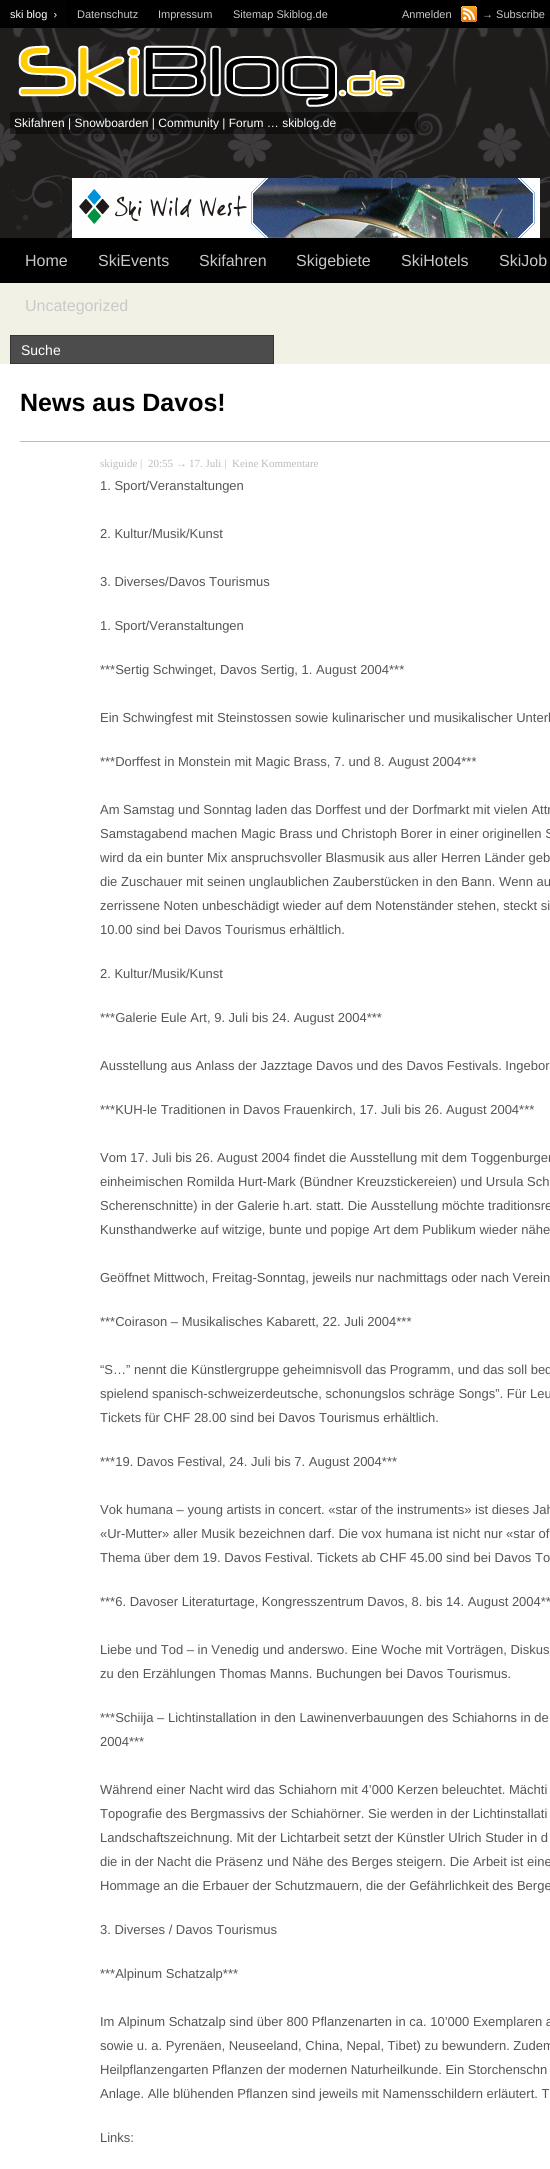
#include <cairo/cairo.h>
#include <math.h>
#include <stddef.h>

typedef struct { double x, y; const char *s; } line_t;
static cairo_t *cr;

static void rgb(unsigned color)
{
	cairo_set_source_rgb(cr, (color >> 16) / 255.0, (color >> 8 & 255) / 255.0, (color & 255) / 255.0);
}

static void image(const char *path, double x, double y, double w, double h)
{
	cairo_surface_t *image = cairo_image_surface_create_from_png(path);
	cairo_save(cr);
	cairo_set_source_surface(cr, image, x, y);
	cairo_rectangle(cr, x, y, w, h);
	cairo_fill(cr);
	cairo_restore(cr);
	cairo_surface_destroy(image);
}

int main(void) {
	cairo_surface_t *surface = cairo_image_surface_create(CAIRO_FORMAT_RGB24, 550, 2169);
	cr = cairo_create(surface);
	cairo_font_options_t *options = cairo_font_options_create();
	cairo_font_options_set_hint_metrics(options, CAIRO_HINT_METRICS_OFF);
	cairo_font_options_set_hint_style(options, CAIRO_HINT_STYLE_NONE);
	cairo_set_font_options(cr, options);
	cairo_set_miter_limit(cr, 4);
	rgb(0xffffff);
	cairo_paint(cr);
	image("img/1.png", 0, 28, 550, 210);
	rgb(0x000000);
	cairo_rectangle(cr, 67, 0, 483, 28);
	cairo_fill(cr);
	rgb(0x020202);
	cairo_rectangle(cr, 0, 0, 67, 28);
	cairo_fill(cr);
	image("img/2.png", 461, 6, 16, 16);
	image("img/3.png", 18, 45, 387, 62);
	cairo_set_source_rgba(cr, 0, 0, 0, 0.43);
	cairo_rectangle(cr, 10, 112, 408, 22);
	cairo_fill(cr);
	image("img/4.png", 72, 178, 468, 60);
	rgb(0x000000);
	cairo_rectangle(cr, 0, 238, 550, 45);
	cairo_fill(cr);
	rgb(0xf1f1e5);
	cairo_rectangle(cr, 0, 283, 550, 81);
	cairo_fill(cr);
	rgb(0x4c4c4c);
	cairo_rectangle(cr, 10.5, 335.5, 263, 28);
	cairo_fill_preserve(cr);
	rgb(0x353535);
	cairo_set_line_width(cr, 1);
	cairo_stroke(cr);
	rgb(0xbbbbbb);
	cairo_rectangle(cr, 20, 441, 530, 1);
	cairo_fill(cr);
	cairo_select_font_face(cr, "Liberation Sans", CAIRO_FONT_SLANT_NORMAL, CAIRO_FONT_WEIGHT_NORMAL);
	cairo_set_font_size(cr, 11);
	rgb(0xffffff);
	cairo_move_to(cr, 10, 18);
	cairo_show_text(cr, "ski blog  ›");
	rgb(0xc9c9c9);
	{
		static const line_t items[] = {
			{77, 18, "Datenschutz"},
			{158, 18, "Impressum"},
			{233, 18, "Sitemap Skiblog.de"},
			{402, 18, "Anmelden"},
			{482, 18, "→ Subscribe"},
		};
		for (size_t i = 0; i < sizeof items / sizeof *items; i++) {
			cairo_move_to(cr, items[i].x, items[i].y);
			cairo_show_text(cr, items[i].s);
		}
	}
	cairo_set_font_size(cr, 12);
	rgb(0xffffff);
	cairo_move_to(cr, 14, 127);
	cairo_show_text(cr, "Skifahren | Snowboarden | Community | Forum … skiblog.de");
	cairo_set_font_size(cr, 16);
	rgb(0xc9c9c9);
	{
		static const line_t items[] = {
			{25, 266, "Home"},
			{98, 266, "SkiEvents"},
			{199, 266, "Skifahren"},
			{296, 266, "Skigebiete"},
			{401, 266, "SkiHotels"},
			{499, 266, "SkiJob"},
			{25, 311, "Uncategorized"},
		};
		for (size_t i = 0; i < sizeof items / sizeof *items; i++) {
			cairo_move_to(cr, items[i].x, items[i].y);
			cairo_show_text(cr, items[i].s);
		}
	}
	cairo_set_font_size(cr, 14);
	rgb(0xffffff);
	cairo_move_to(cr, 21, 355);
	cairo_show_text(cr, "Suche");
	cairo_select_font_face(cr, "Liberation Sans", CAIRO_FONT_SLANT_NORMAL, CAIRO_FONT_WEIGHT_BOLD);
	cairo_set_font_size(cr, 25);
	rgb(0x000000);
	cairo_move_to(cr, 20, 411);
	cairo_show_text(cr, "News aus Davos!");
	cairo_select_font_face(cr, "Liberation Serif", CAIRO_FONT_SLANT_NORMAL, CAIRO_FONT_WEIGHT_NORMAL);
	cairo_set_font_size(cr, 11);
	rgb(0xbbbbbb);
	cairo_move_to(cr, 100, 467);
	cairo_show_text(cr, "skiguide |");
	cairo_move_to(cr, 148, 467);
	cairo_show_text(cr, "20:55");
	cairo_select_font_face(cr, "Liberation Serif", CAIRO_FONT_SLANT_ITALIC, CAIRO_FONT_WEIGHT_NORMAL);
	cairo_move_to(cr, 176, 467);
	cairo_show_text(cr, "→");
	cairo_select_font_face(cr, "Liberation Serif", CAIRO_FONT_SLANT_NORMAL, CAIRO_FONT_WEIGHT_NORMAL);
	cairo_move_to(cr, 189, 467);
	cairo_show_text(cr, "17. Juli |");
	cairo_move_to(cr, 232, 467);
	cairo_show_text(cr, "Keine Kommentare");
	cairo_select_font_face(cr, "Liberation Sans", CAIRO_FONT_SLANT_NORMAL, CAIRO_FONT_WEIGHT_NORMAL);
	cairo_set_font_size(cr, 13);
	rgb(0x555555);
	{
		static const line_t items[] = {
			{100, 490, "1. Sport/Veranstaltungen"},
			{100, 538, "2. Kultur/Musik/Kunst"},
			{100, 586, "3. Diverses/Davos Tourismus"},
			{100, 630, "1. Sport/Veranstaltungen"},
			{100, 674, "***Sertig Schwinget, Davos Sertig, 1. August 2004***"},
			{100, 722, "Ein Schwingfest mit Steinstossen sowie kulinarischer und musikalischer Unterh"},
			{100, 766, "***Dorffest in Monstein mit Magic Brass, 7. und 8. August 2004***"},
			{100, 814, "Am Samstag und Sonntag laden das Dorffest und der Dorfmarkt mit vielen Attr"},
			{100, 838, "Samstagabend machen Magic Brass und Christoph Borer in einer originellen S"},
			{100, 862, "wird da ein bunter Mix anspruchsvoller Blasmusik aus aller Herren Länder geb"},
			{100, 886, "die Zuschauer mit seinen unglaublichen Zauberstücken in den Bann. Wenn au"},
			{100, 910, "zerrissene Noten unbeschädigt wieder auf dem Notenständer stehen, steckt si"},
			{100, 934, "10.00 sind bei Davos Tourismus erhältlich."},
			{100, 978, "2. Kultur/Musik/Kunst"},
			{100, 1022, "***Galerie Eule Art, 9. Juli bis 24. August 2004***"},
			{100, 1070, "Ausstellung aus Anlass der Jazztage Davos und des Davos Festivals. Ingebor"},
			{100, 1114, "***KUH-le Traditionen in Davos Frauenkirch, 17. Juli bis 26. August 2004***"},
			{100, 1162, "Vom 17. Juli bis 26. August 2004 findet die Ausstellung mit dem Toggenburger"},
			{100, 1186, "einheimischen Romilda Hurt-Mark (Bündner Kreuzstickereien) und Ursula Sch"},
			{100, 1210, "Scherenschnitte) in der Galerie h.art. statt. Die Ausstellung möchte traditionsre"},
			{100, 1234, "Kunsthandwerke auf witzige, bunte und popige Art dem Publikum wieder nähe"},
			{100, 1282, "Geöffnet Mittwoch, Freitag-Sonntag, jeweils nur nachmittags oder nach Verein"},
			{100, 1326, "***Coirason – Musikalisches Kabarett, 22. Juli 2004***"},
			{100, 1374, "“S…” nennt die Künstlergruppe geheimnisvoll das Programm, und das soll bed"},
			{100, 1398, "spielend spanisch-schweizerdeutsche, schonungslos schräge Songs”. Für Leu"},
			{100, 1422, "Tickets für CHF 28.00 sind bei Davos Tourismus erhältlich."},
			{100, 1466, "***19. Davos Festival, 24. Juli bis 7. August 2004***"},
			{100, 1514, "Vok humana – young artists in concert. «star of the instruments» ist dieses Jah"},
			{100, 1538, "«Ur-Mutter» aller Musik bezeichnen darf. Die vox humana ist nicht nur «star of"},
			{100, 1562, "Thema über dem 19. Davos Festival. Tickets ab CHF 45.00 sind bei Davos To"},
			{100, 1606, "***6. Davoser Literaturtage, Kongresszentrum Davos, 8. bis 14. August 2004**"},
			{100, 1654, "Liebe und Tod – in Venedig und anderswo. Eine Woche mit Vorträgen, Diskus"},
			{100, 1678, "zu den Erzählungen Thomas Manns. Buchungen bei Davos Tourismus."},
			{100, 1722, "***Schiija – Lichtinstallation in den Lawinenverbauungen des Schiahorns in de"},
			{100, 1746, "2004***"},
			{100, 1794, "Während einer Nacht wird das Schiahorn mit 4’000 Kerzen beleuchtet. Mächti"},
			{100, 1818, "Topografie des Bergmassivs der Schiahörner. Sie werden in der Lichtinstallati"},
			{100, 1842, "Landschaftszeichnung. Mit der Lichtarbeit setzt der Künstler Ulrich Studer in d"},
			{100, 1866, "die in der Nacht die Präsenz und Nähe des Berges steigern. Die Arbeit ist eine"},
			{100, 1890, "Hommage an die Erbauer der Schutzmauern, die der Gefährlichkeit des Berge"},
			{100, 1934, "3. Diverses / Davos Tourismus"},
			{100, 1978, "***Alpinum Schatzalp***"},
			{100, 2026, "Im Alpinum Schatzalp sind über 800 Pflanzenarten in ca. 10’000 Exemplaren a"},
			{100, 2050, "sowie u. a. Pyrenäen, Neuseeland, China, Nepal, Tibet) zu bewundern. Zudem"},
			{100, 2074, "Heilpflanzengarten Pflanzen der modernen Naturheilkunde. Ein Storchenschn"},
			{100, 2098, "Anlage. Alle blühenden Pflanzen sind jeweils mit Namensschildern erläutert. T"},
			{100, 2142, "Links:"},
		};
		for (size_t i = 0; i < sizeof items / sizeof *items; i++) {
			cairo_move_to(cr, items[i].x, items[i].y);
			cairo_show_text(cr, items[i].s);
		}
	}
	cairo_surface_write_to_png(surface, "page.png");
	cairo_font_options_destroy(options);
	cairo_destroy(cr);
	cairo_surface_destroy(surface);
	return 0;
}
